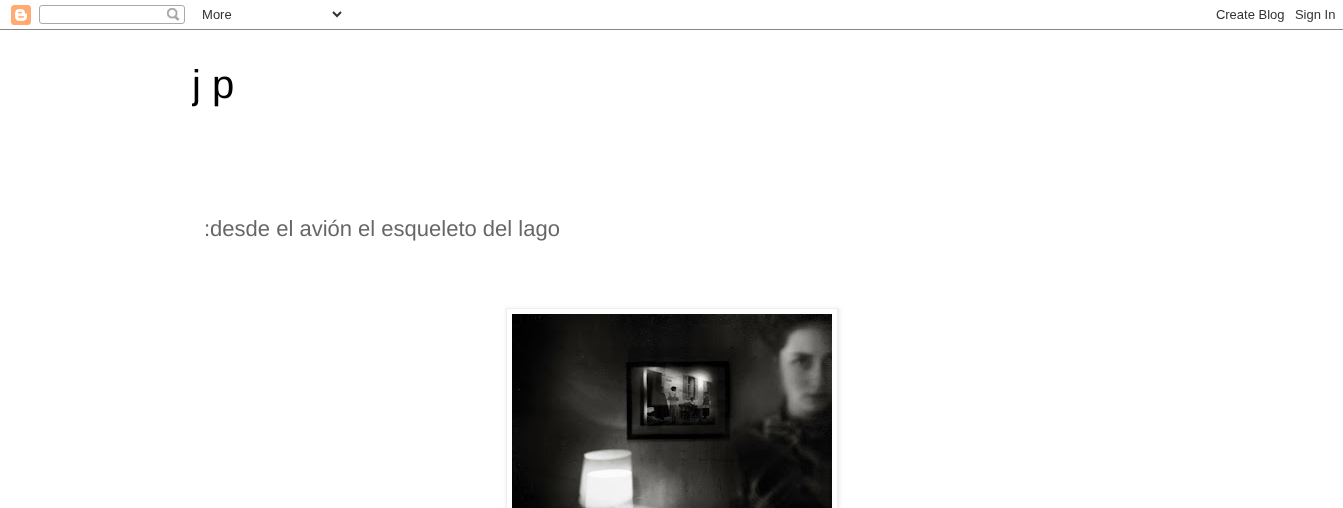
#include <cairo/cairo.h>
#include <math.h>
#include <stddef.h>

static cairo_t *cr;

static void rgb(unsigned color)
{
	cairo_set_source_rgb(cr, (color >> 16) / 255.0, (color >> 8 & 255) / 255.0, (color & 255) / 255.0);
}

static void rrect(double x, double y, double w, double h, double r)
{
	cairo_new_sub_path(cr);
	cairo_arc(cr, x + w - r, y + h - r, r, 0, M_PI / 2);
	cairo_arc(cr, x + r, y + h - r, r, M_PI / 2, M_PI);
	cairo_arc(cr, x + r, y + r, r, M_PI, 1.5 * M_PI);
	cairo_arc(cr, x + w - r, y + r, r, 1.5 * M_PI, 2 * M_PI);
	cairo_close_path(cr);
}

static void soft_shadow(double x, double y, double w, double h, double r, double blur, double alpha)
{
	cairo_push_group_with_content(cr, CAIRO_CONTENT_ALPHA);
	cairo_set_operator(cr, CAIRO_OPERATOR_SOURCE);
	for (int i = 15; i >= -15 && fmin(w, h) + blur * i / 3 > 0; i -= 2) {
		double e = blur * i / 6;
		cairo_set_source_rgba(cr, 0, 0, 0, alpha * erfc((i - 1) / 8.5) / 2);
		rrect(x - e, y - e, w + 2 * e, h + 2 * e, fmax(0, fmin(r + e + blur * .6, fmin(w, h) / 2 + e)));
		cairo_fill(cr);
	}
	cairo_pattern_t *soft = cairo_pop_group(cr);
	cairo_mask(cr, soft);
	cairo_pattern_destroy(soft);
}

static void image(const char *path, double x, double y, double w, double h)
{
	cairo_surface_t *image = cairo_image_surface_create_from_png(path);
	cairo_save(cr);
	cairo_set_source_surface(cr, image, x, y);
	cairo_rectangle(cr, x, y, w, h);
	cairo_fill(cr);
	cairo_restore(cr);
	cairo_surface_destroy(image);
}

int main(void) {
	cairo_surface_t *surface = cairo_image_surface_create(CAIRO_FORMAT_RGB24, 1343, 508);
	cr = cairo_create(surface);
	cairo_font_options_t *options = cairo_font_options_create();
	cairo_font_options_set_hint_metrics(options, CAIRO_HINT_METRICS_OFF);
	cairo_font_options_set_hint_style(options, CAIRO_HINT_STYLE_NONE);
	cairo_set_font_options(cr, options);
	cairo_set_miter_limit(cr, 4);
	rgb(0xffffff);
	cairo_paint(cr);
	image("img/1.png", 0, 5, 1343, 25);
	cairo_save(cr);
	cairo_set_fill_rule(cr, CAIRO_FILL_RULE_EVEN_ODD);
	cairo_new_path(cr);
	cairo_move_to(cr, 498, 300);
	cairo_line_to(cr, 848, 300);
	cairo_line_to(cr, 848, 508);
	cairo_line_to(cr, 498, 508);
	cairo_close_path(cr);
	cairo_move_to(cr, 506, 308);
	cairo_line_to(cr, 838, 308);
	cairo_line_to(cr, 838, 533);
	cairo_line_to(cr, 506, 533);
	cairo_close_path(cr);
	cairo_clip(cr);
	rgb(0x000000);
	soft_shadow(507, 309, 332, 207, 0, 2.5, 0.1);
	cairo_restore(cr);
	cairo_rectangle(cr, 506.5, 308.5, 331, 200);
	rgb(0xeeeeee);
	cairo_set_line_width(cr, 1);
	cairo_stroke(cr);
	image("img/2.png", 512, 314, 320, 194);
	cairo_save(cr);
	cairo_rectangle(cr, 192, 40, 960, 124);
	cairo_clip(cr);
	cairo_select_font_face(cr, "Liberation Sans", CAIRO_FONT_SLANT_NORMAL, CAIRO_FONT_WEIGHT_NORMAL);
	cairo_set_font_size(cr, 40);
	rgb(0x000000);
	cairo_move_to(cr, 192, 98);
	cairo_show_text(cr, "j p");
	cairo_restore(cr);
	cairo_select_font_face(cr, "Liberation Sans", CAIRO_FONT_SLANT_NORMAL, CAIRO_FONT_WEIGHT_NORMAL);
	cairo_set_font_size(cr, 22);
	rgb(0x666666);
	cairo_move_to(cr, 204, 236);
	cairo_show_text(cr, ":desde el avión el esqueleto del lago");
	cairo_surface_write_to_png(surface, "page.png");
	cairo_font_options_destroy(options);
	cairo_destroy(cr);
	cairo_surface_destroy(surface);
	return 0;
}
